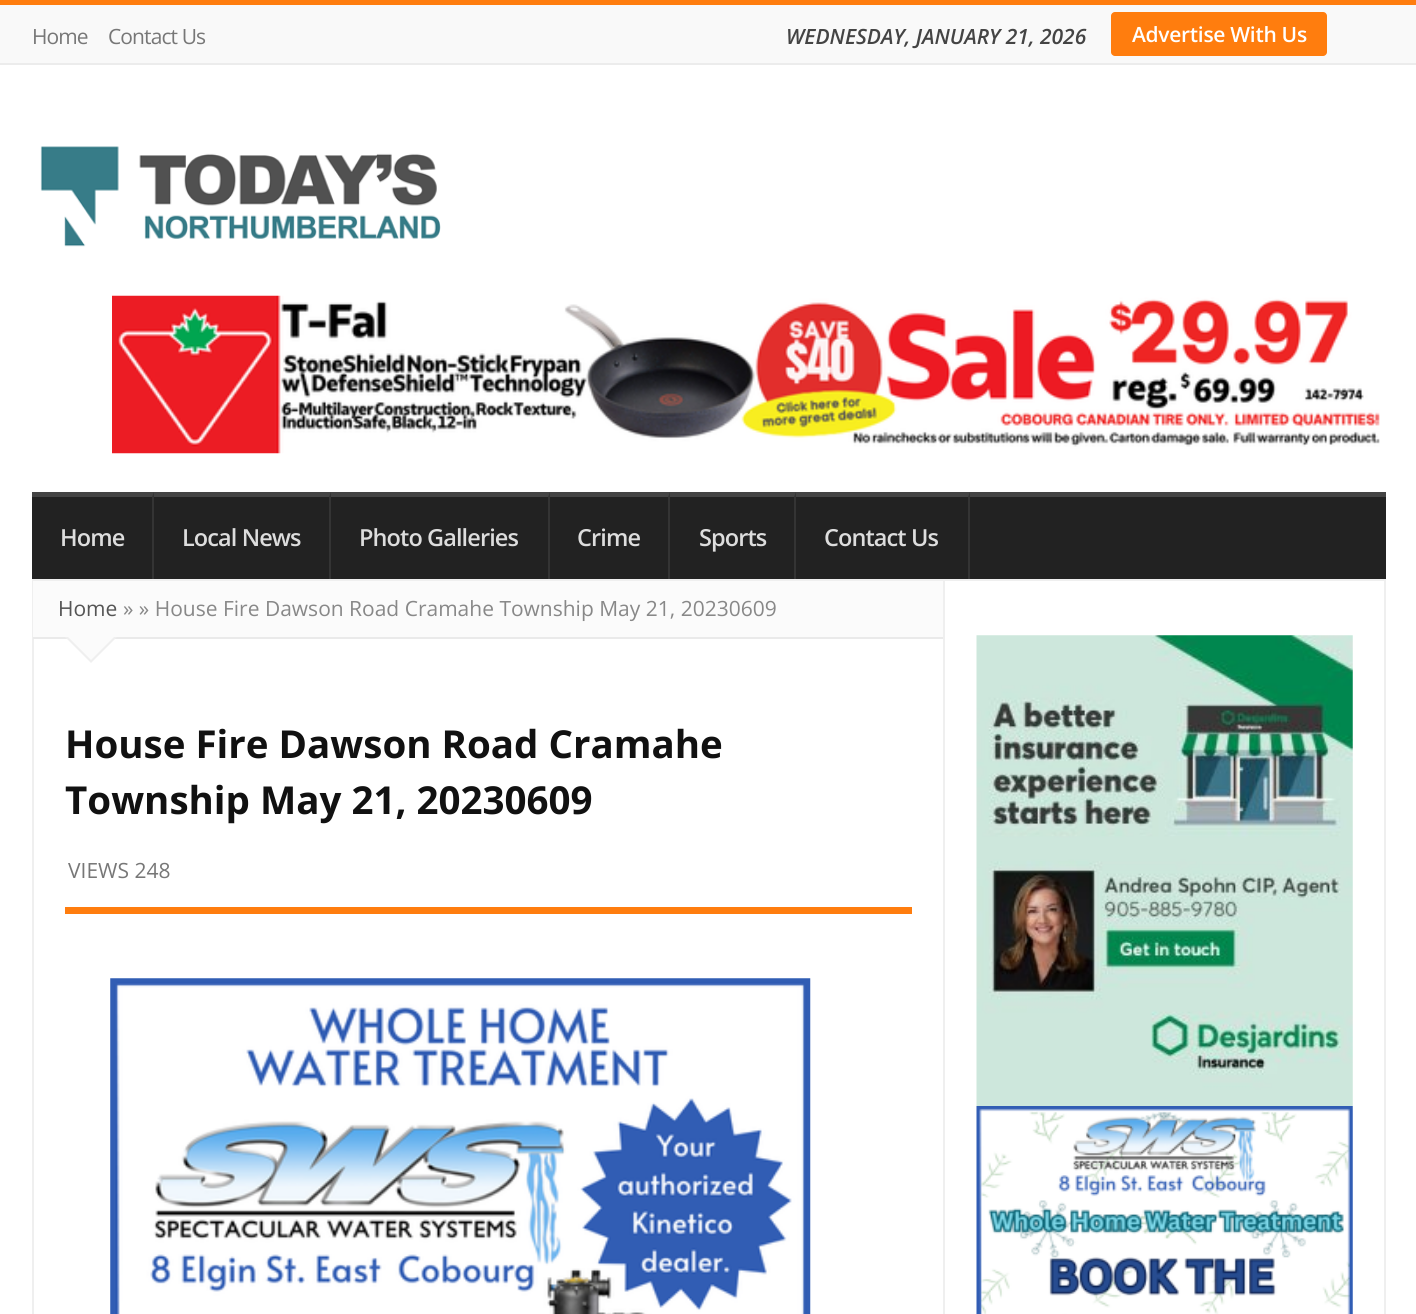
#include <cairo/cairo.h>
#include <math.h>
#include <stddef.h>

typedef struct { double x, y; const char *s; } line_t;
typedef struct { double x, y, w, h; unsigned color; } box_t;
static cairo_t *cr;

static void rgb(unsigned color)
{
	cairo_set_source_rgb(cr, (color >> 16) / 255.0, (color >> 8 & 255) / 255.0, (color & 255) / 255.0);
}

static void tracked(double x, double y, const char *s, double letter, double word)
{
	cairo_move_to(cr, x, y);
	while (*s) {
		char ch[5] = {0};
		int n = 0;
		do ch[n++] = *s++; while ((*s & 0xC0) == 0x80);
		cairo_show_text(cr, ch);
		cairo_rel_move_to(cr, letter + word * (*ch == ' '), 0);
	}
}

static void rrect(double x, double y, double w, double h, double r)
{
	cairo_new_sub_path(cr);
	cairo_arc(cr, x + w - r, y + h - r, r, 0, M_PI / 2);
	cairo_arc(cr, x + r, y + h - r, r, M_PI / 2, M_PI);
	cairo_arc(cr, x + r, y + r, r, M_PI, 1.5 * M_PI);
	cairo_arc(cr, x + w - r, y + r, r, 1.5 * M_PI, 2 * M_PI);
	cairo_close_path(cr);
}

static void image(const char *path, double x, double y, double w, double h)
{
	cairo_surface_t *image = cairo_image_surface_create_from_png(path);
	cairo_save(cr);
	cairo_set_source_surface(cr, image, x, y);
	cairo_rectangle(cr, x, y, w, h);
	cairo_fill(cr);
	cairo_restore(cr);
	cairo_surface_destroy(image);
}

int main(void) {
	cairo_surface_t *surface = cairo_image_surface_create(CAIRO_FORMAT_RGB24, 1416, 1314);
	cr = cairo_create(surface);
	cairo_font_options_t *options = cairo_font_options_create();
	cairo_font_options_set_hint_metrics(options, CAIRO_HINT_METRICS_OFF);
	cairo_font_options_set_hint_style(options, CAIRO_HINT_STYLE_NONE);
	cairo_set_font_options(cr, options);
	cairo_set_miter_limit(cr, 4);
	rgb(0xffffff);
	cairo_paint(cr);
	{
		static const box_t items[] = {
			{0, 0, 1416, 5, 0xff7d0e},
			{0, 5, 1416, 58, 0xf9f9f9},
			{0, 63, 1416, 2, 0xececec},
		};
		for (size_t i = 0; i < sizeof items / sizeof *items; i++) {
			rgb(items[i].color);
			cairo_rectangle(cr, items[i].x, items[i].y, items[i].w, items[i].h);
			cairo_fill(cr);
		}
	}
	rgb(0xff7d0e);
	rrect(1111, 12, 216, 44, 4);
	cairo_fill(cr);
	image("img/1.png", 40, 146, 401, 101);
	image("img/2.png", 112, 295, 1268, 159);
	rgb(0x222222);
	cairo_rectangle(cr, 32, 497, 1354, 82);
	cairo_fill(cr);
	rgb(0x444444);
	cairo_rectangle(cr, 32, 492, 1354, 5);
	cairo_fill(cr);
	rgb(0x343434);
	cairo_new_path(cr);
	cairo_move_to(cr, 154, 492);
	cairo_line_to(cr, 154, 579);
	cairo_line_to(cr, 152, 579);
	cairo_line_to(cr, 152, 497);
	cairo_close_path(cr);
	cairo_fill(cr);
	cairo_new_path(cr);
	cairo_move_to(cr, 331, 492);
	cairo_line_to(cr, 331, 579);
	cairo_line_to(cr, 329, 579);
	cairo_line_to(cr, 329, 497);
	cairo_close_path(cr);
	cairo_fill(cr);
	cairo_new_path(cr);
	cairo_move_to(cr, 550, 492);
	cairo_line_to(cr, 550, 579);
	cairo_line_to(cr, 548, 579);
	cairo_line_to(cr, 548, 497);
	cairo_close_path(cr);
	cairo_fill(cr);
	cairo_new_path(cr);
	cairo_move_to(cr, 670, 492);
	cairo_line_to(cr, 670, 579);
	cairo_line_to(cr, 668, 579);
	cairo_line_to(cr, 668, 497);
	cairo_close_path(cr);
	cairo_fill(cr);
	cairo_new_path(cr);
	cairo_move_to(cr, 796, 492);
	cairo_line_to(cr, 796, 579);
	cairo_line_to(cr, 794, 579);
	cairo_line_to(cr, 794, 497);
	cairo_close_path(cr);
	cairo_fill(cr);
	cairo_new_path(cr);
	cairo_move_to(cr, 970, 492);
	cairo_line_to(cr, 970, 579);
	cairo_line_to(cr, 968, 579);
	cairo_line_to(cr, 968, 497);
	cairo_close_path(cr);
	cairo_fill(cr);
	{
		static const box_t items[] = {
			{32, 579, 1354, 2, 0xefefef},
			{1384, 579, 2, 735, 0xefefef},
			{32, 579, 2, 735, 0xefefef},
			{943, 581, 2, 733, 0xefefef},
			{33, 581, 910, 56, 0xfbfbfb},
			{33, 637, 910, 2, 0xeaeaea},
		};
		for (size_t i = 0; i < sizeof items / sizeof *items; i++) {
			rgb(items[i].color);
			cairo_rectangle(cr, items[i].x, items[i].y, items[i].w, items[i].h);
			cairo_fill(cr);
		}
	}
	rgb(0xefefef);
	cairo_new_path(cr);
	cairo_move_to(cr, 65, 637);
	cairo_line_to(cr, 117, 637);
	cairo_line_to(cr, 91, 663);
	cairo_close_path(cr);
	cairo_fill(cr);
	rgb(0xfbfbfb);
	cairo_new_path(cr);
	cairo_move_to(cr, 65, 634);
	cairo_line_to(cr, 117, 634);
	cairo_line_to(cr, 91, 660);
	cairo_close_path(cr);
	cairo_fill(cr);
	rgb(0xff7d0e);
	cairo_rectangle(cr, 65, 907, 847, 7);
	cairo_fill(cr);
	image("img/3.png", 110, 978, 701, 336);
	image("img/4.png", 976, 635, 377, 471);
	image("img/5.png", 976, 1106, 377, 208);
	cairo_select_font_face(cr, "Open Sans", CAIRO_FONT_SLANT_NORMAL, CAIRO_FONT_WEIGHT_NORMAL);
	cairo_set_font_size(cr, 21);
	rgb(0x777777);
	tracked(32, 44, "Home", -0.9, 0);
	tracked(108, 44, "Contact Us", -0.9, 0);
	cairo_select_font_face(cr, "Open Sans SemiBold", CAIRO_FONT_SLANT_ITALIC, CAIRO_FONT_WEIGHT_NORMAL);
	rgb(0x444444);
	cairo_move_to(cr, 786, 44);
	cairo_show_text(cr, "WEDNESDAY, JANUARY 21, 2026");
	cairo_select_font_face(cr, "Open Sans SemiBold", CAIRO_FONT_SLANT_NORMAL, CAIRO_FONT_WEIGHT_NORMAL);
	rgb(0xffffff);
	tracked(1132, 42, "Advertise With Us", -0.3, 0);
	cairo_set_font_size(cr, 23.5);
	rgb(0xdddddd);
	{
		static const line_t items[] = {
			{60, 546, "Home"},
			{182, 546, "Local News"},
			{359, 546, "Photo Galleries"},
			{577, 546, "Crime"},
			{699, 546, "Sports"},
			{824, 546, "Contact Us"},
		};
		for (size_t i = 0; i < sizeof items / sizeof *items; i++) {
			tracked(items[i].x, items[i].y, items[i].s, -0.9, 0);
		}
	}
	cairo_select_font_face(cr, "Open Sans", CAIRO_FONT_SLANT_NORMAL, CAIRO_FONT_WEIGHT_NORMAL);
	cairo_set_font_size(cr, 21);
	rgb(0x555555);
	cairo_move_to(cr, 58, 616);
	cairo_show_text(cr, "Home");
	rgb(0x888888);
	cairo_move_to(cr, 123, 616);
	cairo_show_text(cr, "» » House Fire Dawson Road Cramahe Township May 21, 20230609");
	cairo_select_font_face(cr, "Open Sans", CAIRO_FONT_SLANT_NORMAL, CAIRO_FONT_WEIGHT_BOLD);
	cairo_set_font_size(cr, 38.5);
	rgb(0x111111);
	cairo_move_to(cr, 65, 758);
	cairo_show_text(cr, "House Fire Dawson Road Cramahe");
	cairo_move_to(cr, 65, 814);
	cairo_show_text(cr, "Township May 21, 20230609");
	cairo_select_font_face(cr, "Open Sans", CAIRO_FONT_SLANT_NORMAL, CAIRO_FONT_WEIGHT_NORMAL);
	cairo_set_font_size(cr, 21);
	rgb(0x777777);
	cairo_move_to(cr, 68, 878);
	cairo_show_text(cr, "VIEWS 248");
	cairo_surface_write_to_png(surface, "page.png");
	cairo_font_options_destroy(options);
	cairo_destroy(cr);
	cairo_surface_destroy(surface);
	return 0;
}
